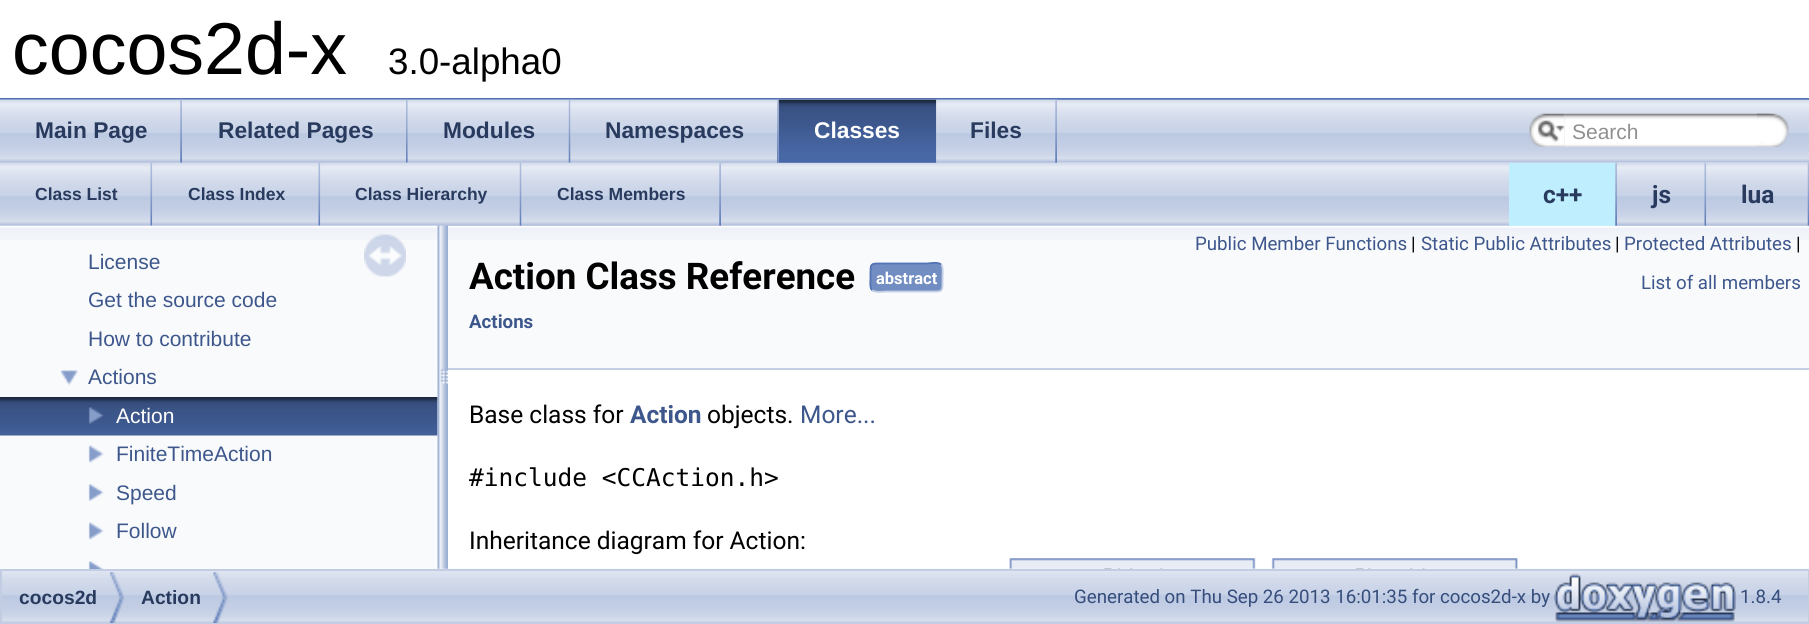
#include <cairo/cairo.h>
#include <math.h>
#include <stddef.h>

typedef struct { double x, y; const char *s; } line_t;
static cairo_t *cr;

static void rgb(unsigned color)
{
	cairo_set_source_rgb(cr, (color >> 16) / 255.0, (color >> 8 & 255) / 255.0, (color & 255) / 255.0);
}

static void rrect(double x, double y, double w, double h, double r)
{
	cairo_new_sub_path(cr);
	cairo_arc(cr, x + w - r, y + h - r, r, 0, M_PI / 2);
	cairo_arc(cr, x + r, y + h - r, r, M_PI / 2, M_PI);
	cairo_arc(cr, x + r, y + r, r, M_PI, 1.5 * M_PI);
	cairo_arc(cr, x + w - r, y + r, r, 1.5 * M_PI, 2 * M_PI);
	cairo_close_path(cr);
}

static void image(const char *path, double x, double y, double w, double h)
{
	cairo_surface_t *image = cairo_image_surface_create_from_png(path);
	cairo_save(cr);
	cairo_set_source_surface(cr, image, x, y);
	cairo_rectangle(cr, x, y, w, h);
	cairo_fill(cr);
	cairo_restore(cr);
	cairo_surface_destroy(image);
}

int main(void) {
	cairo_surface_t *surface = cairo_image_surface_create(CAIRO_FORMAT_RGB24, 1809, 624);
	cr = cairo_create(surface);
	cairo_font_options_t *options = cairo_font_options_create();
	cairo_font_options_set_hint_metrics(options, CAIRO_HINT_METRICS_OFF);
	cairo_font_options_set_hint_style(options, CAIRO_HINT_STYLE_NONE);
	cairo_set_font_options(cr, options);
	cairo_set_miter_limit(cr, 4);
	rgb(0xffffff);
	cairo_paint(cr);
	rgb(0x5373b4);
	cairo_rectangle(cr, 0, 98, 1809, 2);
	cairo_fill(cr);
	image("img/1.png", 0, 99, 1809, 64);
	image("img/16.png", 0, 162, 1809, 64);
	image("img/2.png", 0, 99, 182, 64);
	image("img/3.png", 180, 99, 2, 64);
	image("img/4.png", 182, 99, 226, 64);
	image("img/5.png", 406, 99, 2, 64);
	image("img/6.png", 407, 99, 164, 64);
	image("img/7.png", 568, 99, 3, 64);
	image("img/8.png", 570, 99, 209, 64);
	image("img/5.png", 777, 99, 2, 64);
	image("img/9.png", 778, 99, 159, 64);
	image("img/10.png", 778, 99, 159, 64);
	image("img/11.png", 936, 99, 121, 64);
	image("img/3.png", 1055, 99, 2, 64);
	image("img/12.png", 1529, 113, 36, 34);
	image("img/13.png", 1537, 120, 28, 22);
	image("img/14.png", 1564, 113, 206, 34);
	image("img/15.png", 1757, 113, 32, 34);
	image("img/17.png", 0, 162, 152, 64);
	image("img/18.png", 150, 162, 3, 64);
	image("img/19.png", 152, 162, 168, 64);
	image("img/18.png", 318, 162, 3, 64);
	image("img/20.png", 320, 162, 202, 64);
	image("img/21.png", 519, 162, 3, 64);
	image("img/22.png", 521, 162, 200, 64);
	image("img/23.png", 719, 162, 2, 64);
	image("img/24.png", 1508, 225, 1, 1);
	rgb(0xbfefff);
	cairo_rectangle(cr, 1509, 163, 108, 63);
	cairo_fill(cr);
	image("img/25.png", 1615, 162, 2, 64);
	rgb(0xb7c3de);
	cairo_rectangle(cr, 1617, 225, 89, 1);
	cairo_fill(cr);
	image("img/26.png", 1704, 162, 3, 64);
	image("img/27.png", 1706, 163, 103, 63);
	image("img/28.png", 1807, 162, 2, 64);
	image("img/39.png", 1009, 558, 509, 11);
	image("img/40.png", 2, 568, 1807, 55);
	rgb(0xf9fafc);
	cairo_rectangle(cr, 0, 226, 438, 343);
	cairo_fill(cr);
	image("img/29.png", 0, 225, 438, 15);
	image("img/30.png", 60, 370, 18, 16);
	image("img/31.png", 0, 397, 438, 39);
	image("img/32.png", 88, 407, 16, 17);
	image("img/33.png", 88, 445, 16, 18);
	image("img/34.png", 88, 484, 16, 17);
	image("img/33.png", 88, 522, 16, 18);
	image("img/35.png", 88, 561, 16, 8);
	image("img/36.png", 364, 234, 42, 43);
	image("img/37.png", 437, 225, 11, 344);
	cairo_rectangle(cr, 448, 240, 1361, 128);
	cairo_fill(cr);
	image("img/38.png", 448, 225, 1361, 15);
	rgb(0xc4cfe5);
	cairo_rectangle(cr, 448, 368, 1361, 2);
	cairo_fill(cr);
	rgb(0x728dc1);
	rrect(870, 263, 73, 29, 5);
	cairo_fill(cr);
	cairo_new_path(cr);
	cairo_move_to(cr, 941, 264.5);
	cairo_curve_to(cr, 943.5, 267, 942.5, 274.5, 942.5, 277.5);
	cairo_curve_to(cr, 942.5, 293, 943.5, 291.5, 927.5, 291.5);
	cairo_line_to(cr, 885.5, 291.5);
	cairo_curve_to(cr, 884.5, 291.5, 875, 293, 872, 290);
	rgb(0xc4cfe5);
	cairo_set_line_width(cr, 1.8);
	cairo_stroke(cr);
	cairo_new_path(cr);
	cairo_move_to(cr, 872, 290);
	cairo_curve_to(cr, 869.5, 287.5, 870.5, 280.5, 870.5, 277.5);
	cairo_curve_to(cr, 870.5, 262, 869.5, 263.5, 885.5, 263.5);
	cairo_line_to(cr, 927.5, 263.5);
	cairo_curve_to(cr, 928.5, 263.5, 938, 261.5, 941, 264.5);
	rgb(0x5373b4);
	cairo_stroke(cr);
	cairo_rectangle(cr, 1, 570, 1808, 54);
	rgb(0xc2cde4);
	cairo_set_line_width(cr, 2);
	cairo_stroke(cr);
	image("img/41.png", 110, 572, 15, 51);
	image("img/42.png", 213, 572, 15, 51);
	image("img/43.png", 1554, 573, 182, 49);
	cairo_select_font_face(cr, "Liberation Sans", CAIRO_FONT_SLANT_NORMAL, CAIRO_FONT_WEIGHT_NORMAL);
	cairo_set_font_size(cr, 73.5);
	rgb(0x000000);
	cairo_move_to(cr, 12, 74);
	cairo_show_text(cr, "cocos2d-x");
	cairo_set_font_size(cr, 36.75);
	cairo_move_to(cr, 388, 74);
	cairo_show_text(cr, "3.0-alpha0");
	cairo_select_font_face(cr, "Liberation Sans", CAIRO_FONT_SLANT_NORMAL, CAIRO_FONT_WEIGHT_BOLD);
	cairo_set_font_size(cr, 22.75);
	rgb(0x283a5d);
	{
		static const line_t items[] = {
			{35, 138, "Main Page"},
			{218, 138, "Related Pages"},
			{443, 138, "Modules"},
			{605, 138, "Namespaces"},
		};
		for (size_t i = 0; i < sizeof items / sizeof *items; i++) {
			cairo_move_to(cr, items[i].x, items[i].y);
			cairo_show_text(cr, items[i].s);
		}
	}
	rgb(0xffffff);
	cairo_move_to(cr, 814, 138);
	cairo_show_text(cr, "Classes");
	rgb(0x283a5d);
	cairo_move_to(cr, 970, 138);
	cairo_show_text(cr, "Files");
	cairo_select_font_face(cr, "Liberation Sans", CAIRO_FONT_SLANT_NORMAL, CAIRO_FONT_WEIGHT_NORMAL);
	cairo_set_font_size(cr, 21);
	rgb(0x909090);
	cairo_move_to(cr, 1572, 139);
	cairo_show_text(cr, "Search");
	cairo_select_font_face(cr, "Liberation Sans", CAIRO_FONT_SLANT_NORMAL, CAIRO_FONT_WEIGHT_BOLD);
	cairo_set_font_size(cr, 17.5);
	rgb(0x283a5d);
	{
		static const line_t items[] = {
			{35, 200, "Class List"},
			{188, 200, "Class Index"},
			{355, 200, "Class Hierarchy"},
			{557, 200, "Class Members"},
		};
		for (size_t i = 0; i < sizeof items / sizeof *items; i++) {
			cairo_move_to(cr, items[i].x, items[i].y);
			cairo_show_text(cr, items[i].s);
		}
	}
	cairo_select_font_face(cr, "Roboto", CAIRO_FONT_SLANT_NORMAL, CAIRO_FONT_WEIGHT_BOLD);
	cairo_set_font_size(cr, 24.5);
	{
		static const line_t items[] = {
			{1543, 203, "c++"},
			{1652, 203, "js"},
			{1741, 203, "lua"},
		};
		for (size_t i = 0; i < sizeof items / sizeof *items; i++) {
			cairo_move_to(cr, items[i].x, items[i].y);
			cairo_show_text(cr, items[i].s);
		}
	}
	cairo_select_font_face(cr, "Liberation Sans", CAIRO_FONT_SLANT_NORMAL, CAIRO_FONT_WEIGHT_NORMAL);
	cairo_set_font_size(cr, 21);
	rgb(0x3d578c);
	{
		static const line_t items[] = {
			{88, 269, "License"},
			{88, 307, "Get the source code"},
			{88, 346, "How to contribute"},
			{88, 384, "Actions"},
		};
		for (size_t i = 0; i < sizeof items / sizeof *items; i++) {
			cairo_move_to(cr, items[i].x, items[i].y);
			cairo_show_text(cr, items[i].s);
		}
	}
	rgb(0xffffff);
	cairo_move_to(cr, 116, 423);
	cairo_show_text(cr, "Action");
	rgb(0x3d578c);
	{
		static const line_t items[] = {
			{116, 461, "FiniteTimeAction"},
			{116, 500, "Speed"},
			{116, 538, "Follow"},
		};
		for (size_t i = 0; i < sizeof items / sizeof *items; i++) {
			cairo_move_to(cr, items[i].x, items[i].y);
			cairo_show_text(cr, items[i].s);
		}
	}
	cairo_select_font_face(cr, "Roboto", CAIRO_FONT_SLANT_NORMAL, CAIRO_FONT_WEIGHT_BOLD);
	cairo_set_font_size(cr, 36.75);
	rgb(0x000000);
	cairo_move_to(cr, 469, 289);
	cairo_show_text(cr, "Action Class Reference");
	cairo_set_font_size(cr, 16.5);
	rgb(0xffffff);
	cairo_move_to(cr, 876, 284);
	cairo_show_text(cr, "abstract");
	cairo_set_font_size(cr, 18.7);
	rgb(0x3d578c);
	cairo_move_to(cr, 469, 328);
	cairo_show_text(cr, "Actions");
	cairo_select_font_face(cr, "Roboto", CAIRO_FONT_SLANT_NORMAL, CAIRO_FONT_WEIGHT_NORMAL);
	cairo_move_to(cr, 1195, 250);
	cairo_show_text(cr, "Public Member Functions");
	rgb(0x000000);
	cairo_move_to(cr, 1411, 250);
	cairo_show_text(cr, "|");
	rgb(0x3d578c);
	cairo_move_to(cr, 1421, 250);
	cairo_show_text(cr, "Static Public Attributes");
	rgb(0x000000);
	cairo_move_to(cr, 1615, 250);
	cairo_show_text(cr, "|");
	rgb(0x3d578c);
	cairo_move_to(cr, 1624, 250);
	cairo_show_text(cr, "Protected Attributes");
	rgb(0x000000);
	cairo_move_to(cr, 1796, 250);
	cairo_show_text(cr, "|");
	rgb(0x3d578c);
	cairo_move_to(cr, 1641, 289);
	cairo_show_text(cr, "List of all members");
	cairo_set_font_size(cr, 24.5);
	rgb(0x000000);
	cairo_move_to(cr, 469, 423);
	cairo_show_text(cr, "Base class for");
	cairo_select_font_face(cr, "Roboto", CAIRO_FONT_SLANT_NORMAL, CAIRO_FONT_WEIGHT_BOLD);
	rgb(0x3d578c);
	cairo_move_to(cr, 630, 423);
	cairo_show_text(cr, "Action");
	cairo_select_font_face(cr, "Roboto", CAIRO_FONT_SLANT_NORMAL, CAIRO_FONT_WEIGHT_NORMAL);
	rgb(0x000000);
	cairo_move_to(cr, 707, 423);
	cairo_show_text(cr, "objects.");
	rgb(0x3d578c);
	cairo_move_to(cr, 800, 423);
	cairo_show_text(cr, "More...");
	cairo_select_font_face(cr, "DejaVu Sans Mono", CAIRO_FONT_SLANT_NORMAL, CAIRO_FONT_WEIGHT_NORMAL);
	rgb(0x000000);
	cairo_move_to(cr, 469, 486);
	cairo_show_text(cr, "#include <CCAction.h>");
	cairo_select_font_face(cr, "Roboto", CAIRO_FONT_SLANT_NORMAL, CAIRO_FONT_WEIGHT_NORMAL);
	cairo_move_to(cr, 469, 549);
	cairo_show_text(cr, "Inheritance diagram for Action:");
	cairo_select_font_face(cr, "Liberation Sans", CAIRO_FONT_SLANT_NORMAL, CAIRO_FONT_WEIGHT_BOLD);
	cairo_set_font_size(cr, 19.25);
	rgb(0x283a5d);
	cairo_move_to(cr, 19, 604);
	cairo_show_text(cr, "cocos2d");
	cairo_move_to(cr, 141, 604);
	cairo_show_text(cr, "Action");
	cairo_select_font_face(cr, "Roboto", CAIRO_FONT_SLANT_NORMAL, CAIRO_FONT_WEIGHT_NORMAL);
	cairo_set_font_size(cr, 18.7);
	rgb(0x364d7c);
	cairo_move_to(cr, 1074, 603);
	cairo_show_text(cr, "Generated on Thu Sep 26 2013 16:01:35 for cocos2d-x by");
	cairo_move_to(cr, 1740, 603);
	cairo_show_text(cr, "1.8.4");
	cairo_surface_write_to_png(surface, "page.png");
	cairo_font_options_destroy(options);
	cairo_destroy(cr);
	cairo_surface_destroy(surface);
	return 0;
}
